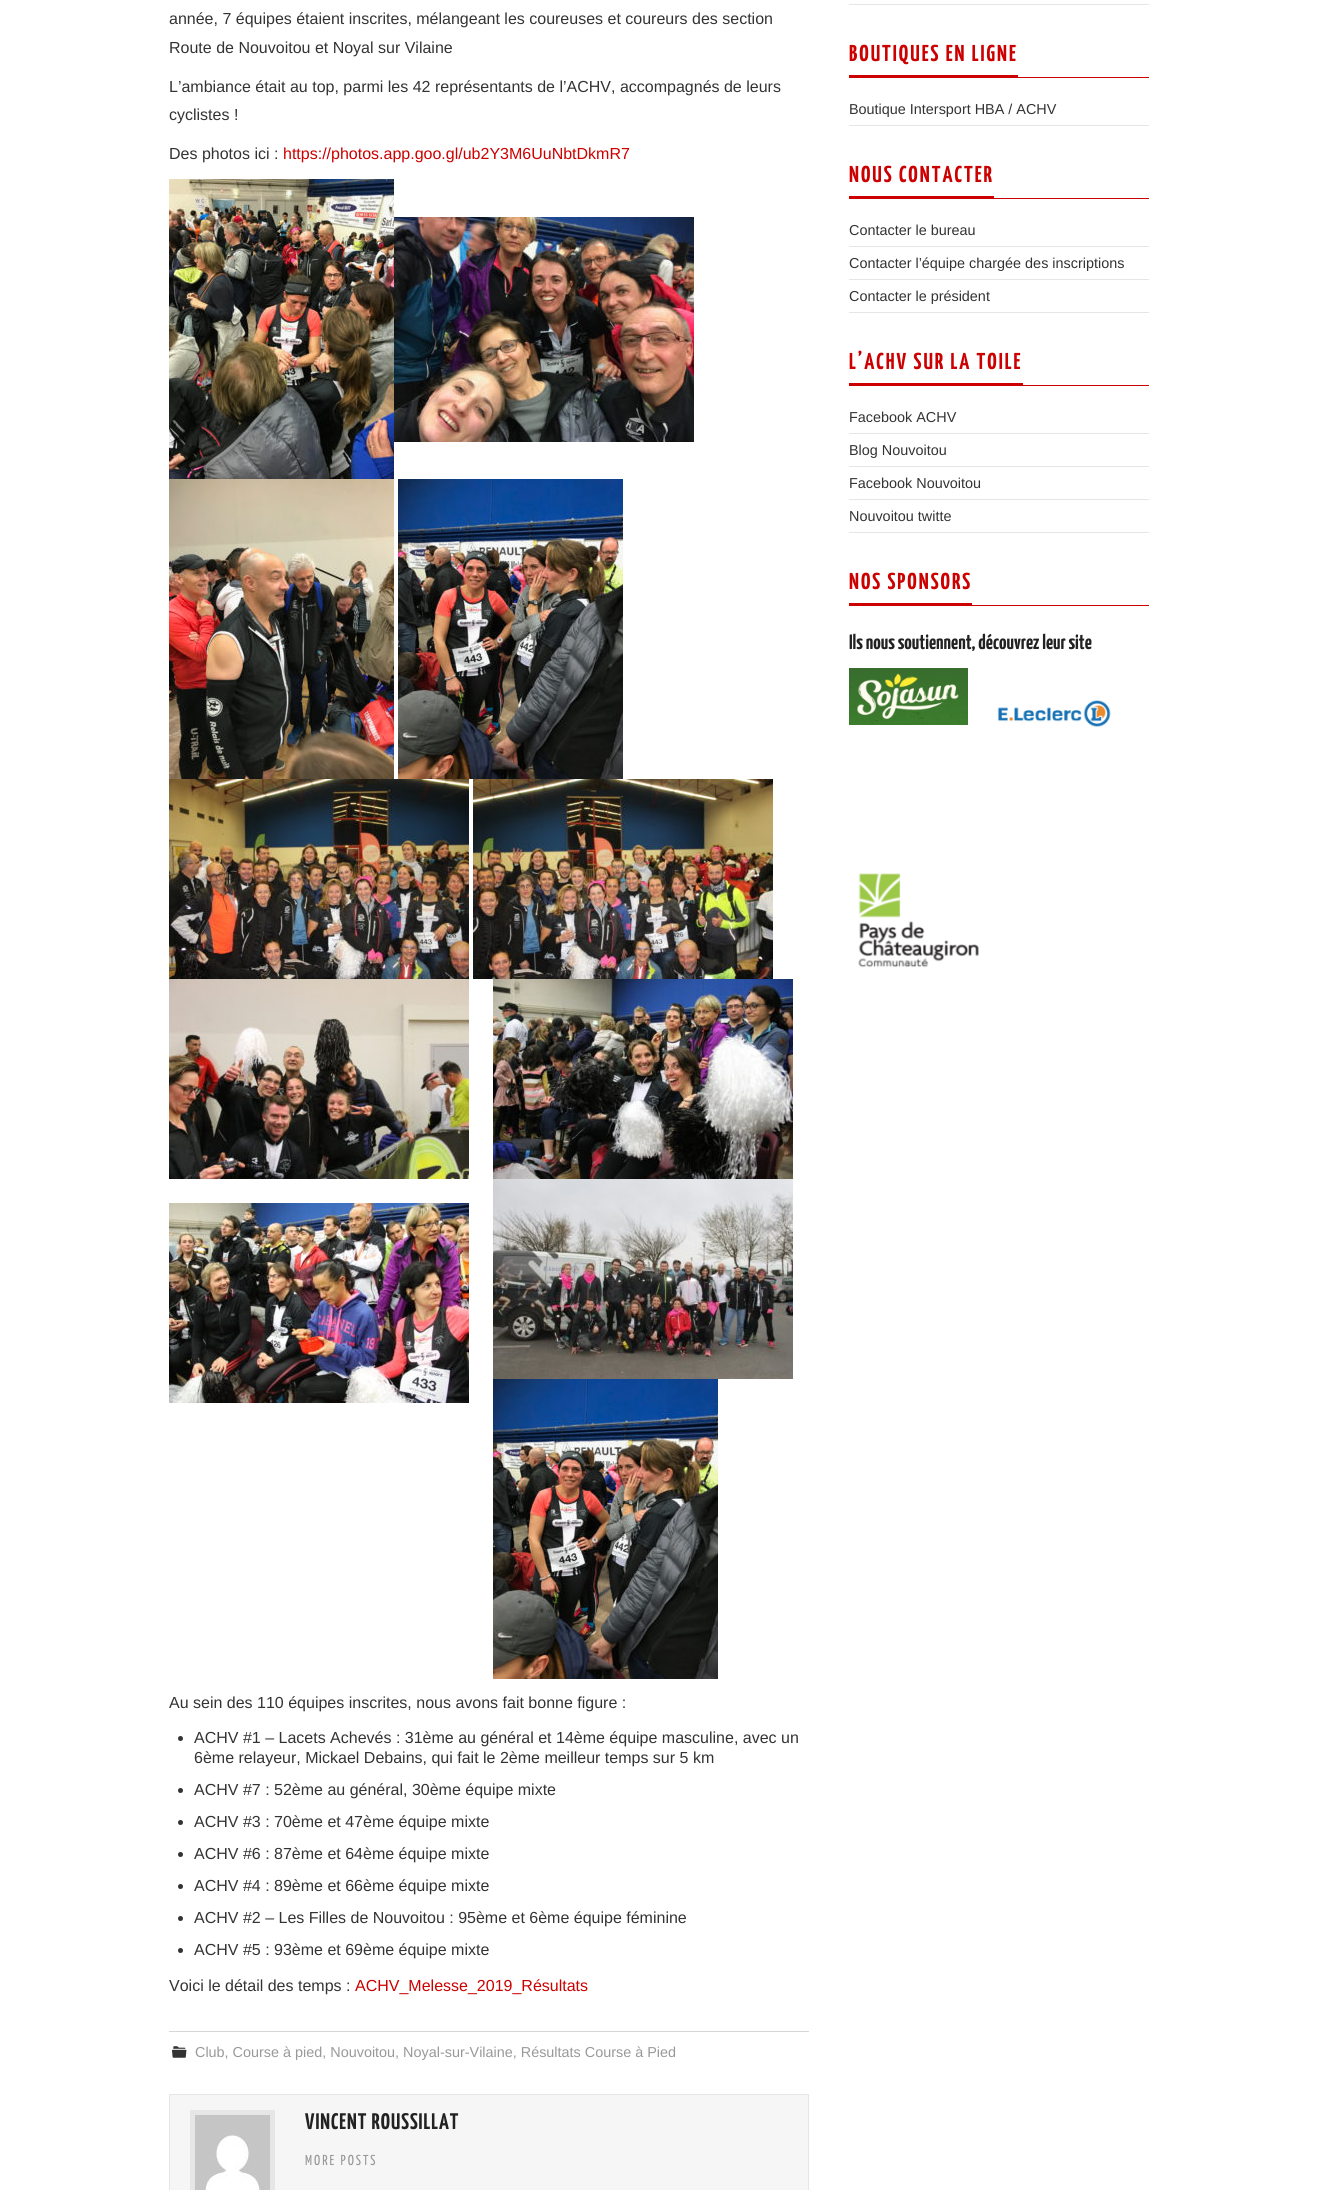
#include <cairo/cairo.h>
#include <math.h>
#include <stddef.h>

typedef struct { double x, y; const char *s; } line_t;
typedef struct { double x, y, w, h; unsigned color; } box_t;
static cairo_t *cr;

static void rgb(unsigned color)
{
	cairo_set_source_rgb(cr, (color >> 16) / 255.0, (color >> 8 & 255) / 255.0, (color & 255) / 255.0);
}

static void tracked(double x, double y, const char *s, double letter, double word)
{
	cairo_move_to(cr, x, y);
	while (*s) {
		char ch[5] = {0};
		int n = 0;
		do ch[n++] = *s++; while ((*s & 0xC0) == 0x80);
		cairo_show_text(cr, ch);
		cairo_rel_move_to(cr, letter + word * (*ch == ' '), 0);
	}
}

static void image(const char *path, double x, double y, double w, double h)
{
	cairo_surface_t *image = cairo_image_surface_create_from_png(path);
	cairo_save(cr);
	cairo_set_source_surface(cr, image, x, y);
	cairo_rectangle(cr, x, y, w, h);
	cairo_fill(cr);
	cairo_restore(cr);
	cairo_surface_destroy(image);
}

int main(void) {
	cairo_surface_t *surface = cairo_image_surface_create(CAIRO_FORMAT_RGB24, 1318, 2190);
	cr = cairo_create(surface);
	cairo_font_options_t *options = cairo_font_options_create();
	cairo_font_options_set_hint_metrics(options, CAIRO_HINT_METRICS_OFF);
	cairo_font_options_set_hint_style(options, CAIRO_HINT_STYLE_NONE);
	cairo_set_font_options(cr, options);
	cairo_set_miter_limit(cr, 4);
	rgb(0xffffff);
	cairo_paint(cr);
	image("img/1.png", 169, 179, 225, 300);
	image("img/2.png", 394, 217, 300, 225);
	image("img/3.png", 169, 479, 225, 300);
	image("img/4.png", 398, 479, 225, 300);
	image("img/5.png", 169, 779, 300, 200);
	image("img/6.png", 473, 779, 300, 200);
	image("img/7.png", 169, 979, 300, 200);
	image("img/8.png", 493, 979, 300, 200);
	image("img/9.png", 169, 1203, 300, 200);
	image("img/10.png", 493, 1179, 300, 200);
	image("img/4.png", 493, 1379, 225, 300);
	rgb(0x333333);
	cairo_arc(cr, 180.5, 1738.5, 2.5, 0, 2 * M_PI);
	cairo_fill(cr);
	cairo_arc(cr, 180.5, 1790.5, 2.5, 0, 2 * M_PI);
	cairo_fill(cr);
	cairo_arc(cr, 180.5, 1822.5, 2.5, 0, 2 * M_PI);
	cairo_fill(cr);
	cairo_arc(cr, 180.5, 1854.5, 2.5, 0, 2 * M_PI);
	cairo_fill(cr);
	cairo_arc(cr, 180.5, 1886.5, 2.5, 0, 2 * M_PI);
	cairo_fill(cr);
	cairo_arc(cr, 180.5, 1918.5, 2.5, 0, 2 * M_PI);
	cairo_fill(cr);
	cairo_arc(cr, 180.5, 1950.5, 2.5, 0, 2 * M_PI);
	cairo_fill(cr);
	rgb(0xd6d6d6);
	cairo_rectangle(cr, 169, 2031, 640, 1);
	cairo_fill(cr);
	image("img/11.png", 172, 2046, 15, 12);
	rgb(0xf6f6f6);
	cairo_rectangle(cr, 169.5, 2094.5, 639, 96);
	cairo_fill_preserve(cr);
	rgb(0xe6e6e6);
	cairo_set_line_width(cr, 1);
	cairo_stroke(cr);
	cairo_rectangle(cr, 192.5, 2112.5, 80, 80);
	cairo_set_line_width(cr, 5);
	cairo_stroke(cr);
	image("img/12.png", 195, 2115, 75, 75);
	{
		static const box_t items[] = {
			{849, 4, 300, 1, 0xe6e6e6},
			{1018, 77, 131, 1, 0xcc0000},
			{849, 75, 169, 3, 0xcc0000},
			{849, 125, 300, 1, 0xe6e6e6},
			{994, 198, 155, 1, 0xcc0000},
			{849, 196, 145, 3, 0xcc0000},
			{849, 246, 300, 1, 0xe6e6e6},
			{849, 279, 300, 1, 0xe6e6e6},
			{849, 312, 300, 1, 0xe6e6e6},
			{1023, 385, 126, 1, 0xcc0000},
			{849, 383, 174, 3, 0xcc0000},
			{849, 433, 300, 1, 0xe6e6e6},
			{849, 466, 300, 1, 0xe6e6e6},
			{849, 499, 300, 1, 0xe6e6e6},
			{849, 532, 300, 1, 0xe6e6e6},
			{972, 605, 177, 1, 0xcc0000},
			{849, 603, 123, 3, 0xcc0000},
		};
		for (size_t i = 0; i < sizeof items / sizeof *items; i++) {
			rgb(items[i].color);
			cairo_rectangle(cr, items[i].x, items[i].y, items[i].w, items[i].h);
			cairo_fill(cr);
		}
	}
	image("img/13.png", 849, 668, 119, 57);
	image("img/14.png", 997, 700, 114, 27);
	image("img/15.png", 858, 873, 121, 95);
	cairo_select_font_face(cr, "Liberation Sans", CAIRO_FONT_SLANT_NORMAL, CAIRO_FONT_WEIGHT_NORMAL);
	cairo_set_font_size(cr, 16);
	rgb(0x333333);
	{
		static const line_t items[] = {
			{169, 24, "année, 7 équipes étaient inscrites, mélangeant les coureuses et coureurs des section"},
			{169, 53, "Route de Nouvoitou et Noyal sur Vilaine"},
			{169, 92, "L’ambiance était au top, parmi les 42 représentants de l’ACHV, accompagnés de leurs"},
			{169, 120, "cyclistes !"},
			{169, 159, "Des photos ici :"},
		};
		for (size_t i = 0; i < sizeof items / sizeof *items; i++) {
			cairo_move_to(cr, items[i].x, items[i].y);
			cairo_show_text(cr, items[i].s);
		}
	}
	rgb(0xcc0000);
	cairo_move_to(cr, 283, 159);
	cairo_show_text(cr, "https://photos.app.goo.gl/ub2Y3M6UuNbtDkmR7");
	rgb(0x333333);
	{
		static const line_t items[] = {
			{169, 1708, "Au sein des 110 équipes inscrites, nous avons fait bonne figure :"},
			{194, 1743, "ACHV #1 – Lacets Achevés : 31ème au général et 14ème équipe masculine, avec un"},
			{194, 1763, "6ème relayeur, Mickael Debains, qui fait le 2ème meilleur temps sur 5 km"},
			{194, 1795, "ACHV #7 : 52ème au général, 30ème équipe mixte"},
			{194, 1827, "ACHV #3 : 70ème et 47ème équipe mixte"},
			{194, 1859, "ACHV #6 : 87ème et 64ème équipe mixte"},
			{194, 1891, "ACHV #4 : 89ème et 66ème équipe mixte"},
			{194, 1923, "ACHV #2 – Les Filles de Nouvoitou : 95ème et 6ème équipe féminine"},
			{194, 1955, "ACHV #5 : 93ème et 69ème équipe mixte"},
			{169, 1991, "Voici le détail des temps :"},
		};
		for (size_t i = 0; i < sizeof items / sizeof *items; i++) {
			cairo_move_to(cr, items[i].x, items[i].y);
			cairo_show_text(cr, items[i].s);
		}
	}
	rgb(0xcc0000);
	cairo_move_to(cr, 355, 1991);
	cairo_show_text(cr, "ACHV_Melesse_2019_Résultats");
	cairo_set_font_size(cr, 14.4);
	rgb(0x999999);
	cairo_move_to(cr, 195, 2057);
	cairo_show_text(cr, "Club, Course à pied, Nouvoitou, Noyal-sur-Vilaine, Résultats Course à Pied");
	cairo_select_font_face(cr, "Yanone Kaffeesatz", CAIRO_FONT_SLANT_NORMAL, CAIRO_FONT_WEIGHT_BOLD);
	cairo_set_font_size(cr, 22.5);
	rgb(0x222222);
	tracked(305, 2129, "VINCENT ROUSSILLAT", 1, 0);
	cairo_select_font_face(cr, "Yanone Kaffeesatz", CAIRO_FONT_SLANT_NORMAL, CAIRO_FONT_WEIGHT_NORMAL);
	cairo_set_font_size(cr, 14.4);
	rgb(0x999999);
	tracked(305, 2165, "MORE POSTS", 2, 0);
	cairo_select_font_face(cr, "Yanone Kaffeesatz", CAIRO_FONT_SLANT_NORMAL, CAIRO_FONT_WEIGHT_BOLD);
	cairo_set_font_size(cr, 23);
	rgb(0xcc0000);
	tracked(849, 61, "BOUTIQUES EN LIGNE", 2, 0);
	cairo_select_font_face(cr, "Liberation Sans", CAIRO_FONT_SLANT_NORMAL, CAIRO_FONT_WEIGHT_NORMAL);
	cairo_set_font_size(cr, 14.4);
	rgb(0x333333);
	cairo_move_to(cr, 849, 114);
	cairo_show_text(cr, "Boutique Intersport HBA / ACHV");
	cairo_select_font_face(cr, "Yanone Kaffeesatz", CAIRO_FONT_SLANT_NORMAL, CAIRO_FONT_WEIGHT_BOLD);
	cairo_set_font_size(cr, 23);
	rgb(0xcc0000);
	tracked(849, 182, "NOUS CONTACTER", 2, 0);
	cairo_select_font_face(cr, "Liberation Sans", CAIRO_FONT_SLANT_NORMAL, CAIRO_FONT_WEIGHT_NORMAL);
	cairo_set_font_size(cr, 14.4);
	rgb(0x333333);
	{
		static const line_t items[] = {
			{849, 235, "Contacter le bureau"},
			{849, 268, "Contacter l’équipe chargée des inscriptions"},
			{849, 301, "Contacter le président"},
		};
		for (size_t i = 0; i < sizeof items / sizeof *items; i++) {
			cairo_move_to(cr, items[i].x, items[i].y);
			cairo_show_text(cr, items[i].s);
		}
	}
	cairo_select_font_face(cr, "Yanone Kaffeesatz", CAIRO_FONT_SLANT_NORMAL, CAIRO_FONT_WEIGHT_BOLD);
	cairo_set_font_size(cr, 23);
	rgb(0xcc0000);
	tracked(849, 369, "L’ACHV SUR LA TOILE", 2, 0);
	cairo_select_font_face(cr, "Liberation Sans", CAIRO_FONT_SLANT_NORMAL, CAIRO_FONT_WEIGHT_NORMAL);
	cairo_set_font_size(cr, 14.4);
	rgb(0x333333);
	{
		static const line_t items[] = {
			{849, 422, "Facebook ACHV"},
			{849, 455, "Blog Nouvoitou"},
			{849, 488, "Facebook Nouvoitou"},
			{849, 521, "Nouvoitou twitte"},
		};
		for (size_t i = 0; i < sizeof items / sizeof *items; i++) {
			cairo_move_to(cr, items[i].x, items[i].y);
			cairo_show_text(cr, items[i].s);
		}
	}
	cairo_select_font_face(cr, "Yanone Kaffeesatz", CAIRO_FONT_SLANT_NORMAL, CAIRO_FONT_WEIGHT_BOLD);
	cairo_set_font_size(cr, 23);
	rgb(0xcc0000);
	tracked(849, 589, "NOS SPONSORS", 2, 0);
	cairo_set_font_size(cr, 20.75);
	rgb(0x222222);
	cairo_move_to(cr, 849, 649);
	cairo_show_text(cr, "Ils nous soutiennent, découvrez leur site");
	cairo_surface_write_to_png(surface, "page.png");
	cairo_font_options_destroy(options);
	cairo_destroy(cr);
	cairo_surface_destroy(surface);
	return 0;
}
